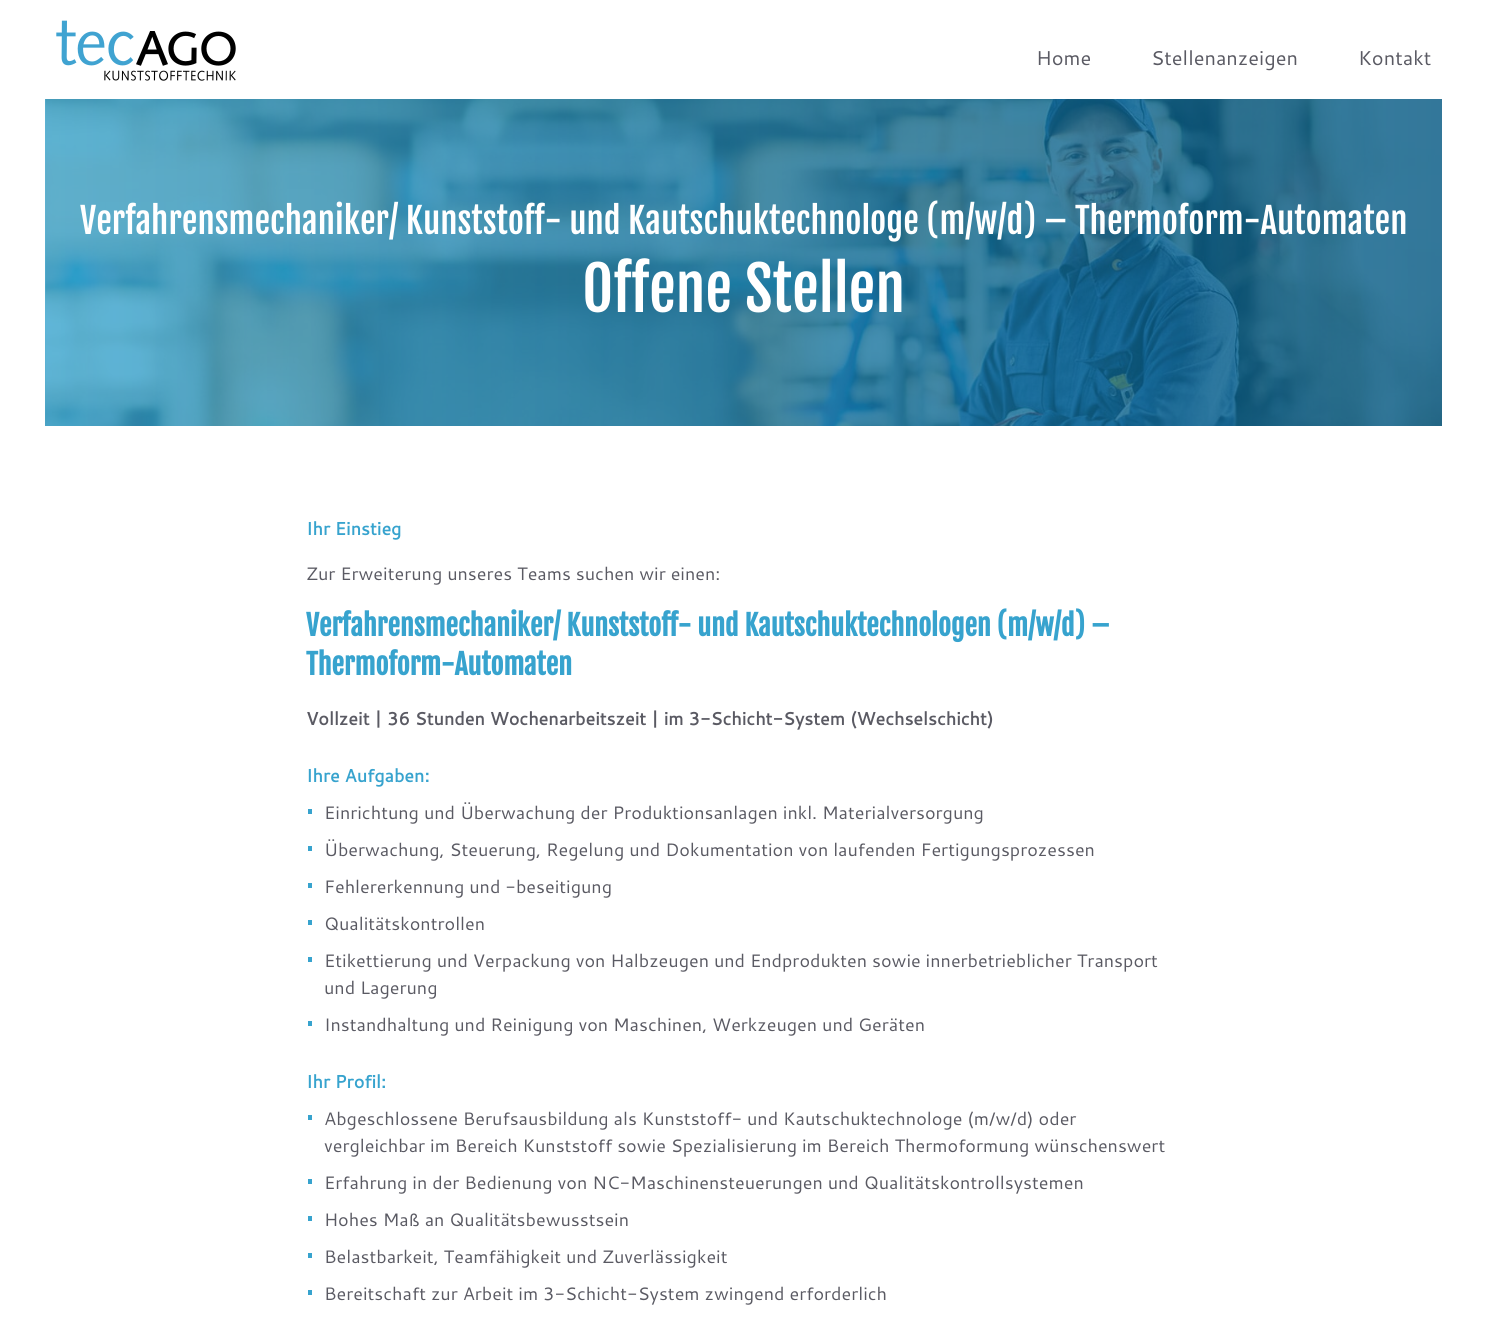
#include <cairo/cairo.h>
#include <math.h>
#include <stddef.h>

typedef struct { double x, y; const char *s; } line_t;
typedef struct { double x, y, w, h; unsigned color; } box_t;
static cairo_t *cr;

static void rgb(unsigned color)
{
	cairo_set_source_rgb(cr, (color >> 16) / 255.0, (color >> 8 & 255) / 255.0, (color & 255) / 255.0);
}

static void image(const char *path, double x, double y, double w, double h)
{
	cairo_surface_t *image = cairo_image_surface_create_from_png(path);
	cairo_save(cr);
	cairo_set_source_surface(cr, image, x, y);
	cairo_rectangle(cr, x, y, w, h);
	cairo_fill(cr);
	cairo_restore(cr);
	cairo_surface_destroy(image);
}

int main(void) {
	cairo_surface_t *surface = cairo_image_surface_create(CAIRO_FORMAT_RGB24, 1487, 1320);
	cr = cairo_create(surface);
	cairo_font_options_t *options = cairo_font_options_create();
	cairo_font_options_set_hint_metrics(options, CAIRO_HINT_METRICS_OFF);
	cairo_font_options_set_hint_style(options, CAIRO_HINT_STYLE_NONE);
	cairo_set_font_options(cr, options);
	cairo_set_miter_limit(cr, 4);
	rgb(0xffffff);
	cairo_paint(cr);
	image("img/1.png", 56, 20, 180, 61);
	image("img/2.png", 45, 99, 1397, 327);
	{
		static const box_t items[] = {
			{308, 809, 4, 5, 0x37a3ce},
			{308, 846, 4, 5, 0x37a3ce},
			{308, 883, 4, 5, 0x37a3ce},
			{308, 920, 4, 5, 0x37a3ce},
			{308, 957, 4, 5, 0x37a3ce},
			{308, 1021, 4, 5, 0x37a3ce},
			{308, 1115, 4, 5, 0x37a3ce},
			{308, 1179, 4, 5, 0x37a3ce},
			{308, 1216, 4, 5, 0x37a3ce},
			{308, 1253, 4, 5, 0x37a3ce},
			{308, 1290, 4, 5, 0x37a3ce},
		};
		for (size_t i = 0; i < sizeof items / sizeof *items; i++) {
			rgb(items[i].color);
			cairo_rectangle(cr, items[i].x, items[i].y, items[i].w, items[i].h);
			cairo_fill(cr);
		}
	}
	cairo_select_font_face(cr, "Cantarell", CAIRO_FONT_SLANT_NORMAL, CAIRO_FONT_WEIGHT_NORMAL);
	cairo_set_font_size(cr, 20);
	rgb(0x5a5a63);
	{
		static const line_t items[] = {
			{1036, 65, "Home"},
			{1151, 65, "Stellenanzeigen"},
			{1358, 65, "Kontakt"},
		};
		for (size_t i = 0; i < sizeof items / sizeof *items; i++) {
			cairo_move_to(cr, items[i].x, items[i].y);
			cairo_show_text(cr, items[i].s);
		}
	}
	cairo_select_font_face(cr, "Fjalla One", CAIRO_FONT_SLANT_NORMAL, CAIRO_FONT_WEIGHT_NORMAL);
	cairo_set_font_size(cr, 35);
	rgb(0xffffff);
	cairo_move_to(cr, 80, 234);
	cairo_show_text(cr, "Verfahrensmechaniker/ Kunststoff- und Kautschuktechnologe (m/w/d) – Thermoform-Automaten");
	cairo_set_font_size(cr, 60);
	cairo_move_to(cr, 582, 312);
	cairo_show_text(cr, "Offene Stellen");
	cairo_select_font_face(cr, "Cantarell", CAIRO_FONT_SLANT_NORMAL, CAIRO_FONT_WEIGHT_BOLD);
	cairo_set_font_size(cr, 18);
	rgb(0x37a3ce);
	cairo_move_to(cr, 306, 535);
	cairo_show_text(cr, "Ihr Einstieg");
	cairo_select_font_face(cr, "Cantarell", CAIRO_FONT_SLANT_NORMAL, CAIRO_FONT_WEIGHT_NORMAL);
	rgb(0x5a5a63);
	cairo_move_to(cr, 306, 580);
	cairo_show_text(cr, "Zur Erweiterung unseres Teams suchen wir einen:");
	cairo_select_font_face(cr, "Fjalla One", CAIRO_FONT_SLANT_NORMAL, CAIRO_FONT_WEIGHT_BOLD);
	cairo_set_font_size(cr, 28);
	rgb(0x37a3ce);
	cairo_move_to(cr, 306, 636);
	cairo_show_text(cr, "Verfahrensmechaniker/ Kunststoff- und Kautschuktechnologen (m/w/d) –");
	cairo_move_to(cr, 306, 675);
	cairo_show_text(cr, "Thermoform-Automaten");
	cairo_select_font_face(cr, "Cantarell", CAIRO_FONT_SLANT_NORMAL, CAIRO_FONT_WEIGHT_BOLD);
	cairo_set_font_size(cr, 18);
	rgb(0x5a5a63);
	cairo_move_to(cr, 306, 725);
	cairo_show_text(cr, "Vollzeit | 36 Stunden Wochenarbeitszeit | im 3-Schicht-System (Wechselschicht)");
	rgb(0x37a3ce);
	cairo_move_to(cr, 306, 782);
	cairo_show_text(cr, "Ihre Aufgaben:");
	cairo_select_font_face(cr, "Cantarell", CAIRO_FONT_SLANT_NORMAL, CAIRO_FONT_WEIGHT_NORMAL);
	rgb(0x5a5a63);
	{
		static const line_t items[] = {
			{324, 819, "Einrichtung und Überwachung der Produktionsanlagen inkl. Materialversorgung"},
			{324, 856, "Überwachung, Steuerung, Regelung und Dokumentation von laufenden Fertigungsprozessen"},
			{324, 893, "Fehlererkennung und -beseitigung"},
			{324, 930, "Qualitätskontrollen"},
			{324, 967, "Etikettierung und Verpackung von Halbzeugen und Endprodukten sowie innerbetrieblicher Transport"},
			{324, 994, "und Lagerung"},
			{324, 1031, "Instandhaltung und Reinigung von Maschinen, Werkzeugen und Geräten"},
		};
		for (size_t i = 0; i < sizeof items / sizeof *items; i++) {
			cairo_move_to(cr, items[i].x, items[i].y);
			cairo_show_text(cr, items[i].s);
		}
	}
	cairo_select_font_face(cr, "Cantarell", CAIRO_FONT_SLANT_NORMAL, CAIRO_FONT_WEIGHT_BOLD);
	rgb(0x37a3ce);
	cairo_move_to(cr, 306, 1088);
	cairo_show_text(cr, "Ihr Profil:");
	cairo_select_font_face(cr, "Cantarell", CAIRO_FONT_SLANT_NORMAL, CAIRO_FONT_WEIGHT_NORMAL);
	rgb(0x5a5a63);
	{
		static const line_t items[] = {
			{324, 1125, "Abgeschlossene Berufsausbildung als Kunststoff- und Kautschuktechnologe (m/w/d) oder"},
			{324, 1152, "vergleichbar im Bereich Kunststoff sowie Spezialisierung im Bereich Thermoformung wünschenswert"},
			{324, 1189, "Erfahrung in der Bedienung von NC-Maschinensteuerungen und Qualitätskontrollsystemen"},
			{324, 1226, "Hohes Maß an Qualitätsbewusstsein"},
			{324, 1263, "Belastbarkeit, Teamfähigkeit und Zuverlässigkeit"},
			{324, 1300, "Bereitschaft zur Arbeit im 3-Schicht-System zwingend erforderlich"},
		};
		for (size_t i = 0; i < sizeof items / sizeof *items; i++) {
			cairo_move_to(cr, items[i].x, items[i].y);
			cairo_show_text(cr, items[i].s);
		}
	}
	cairo_surface_write_to_png(surface, "page.png");
	cairo_font_options_destroy(options);
	cairo_destroy(cr);
	cairo_surface_destroy(surface);
	return 0;
}
